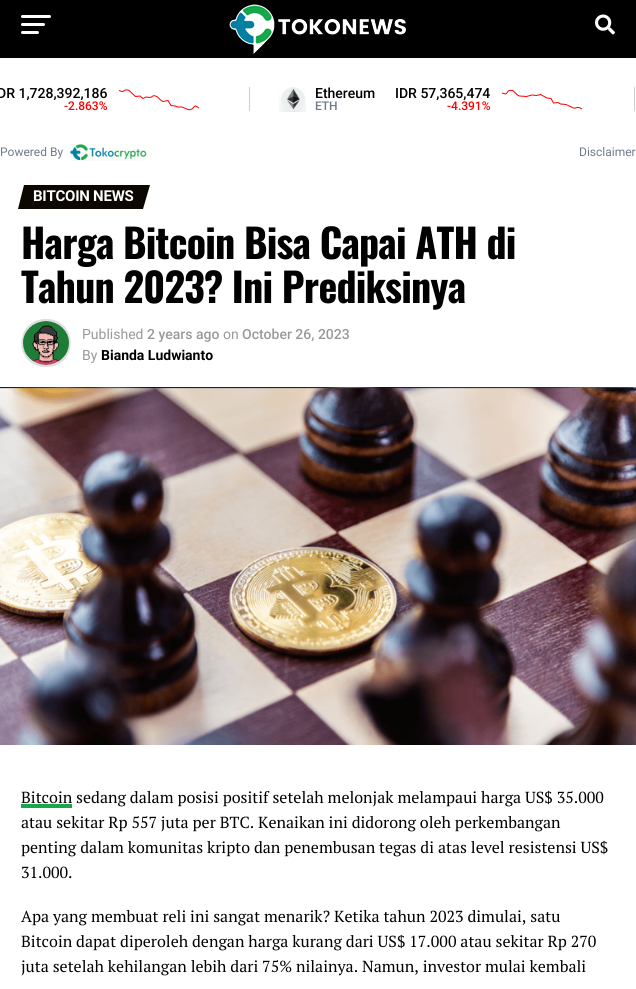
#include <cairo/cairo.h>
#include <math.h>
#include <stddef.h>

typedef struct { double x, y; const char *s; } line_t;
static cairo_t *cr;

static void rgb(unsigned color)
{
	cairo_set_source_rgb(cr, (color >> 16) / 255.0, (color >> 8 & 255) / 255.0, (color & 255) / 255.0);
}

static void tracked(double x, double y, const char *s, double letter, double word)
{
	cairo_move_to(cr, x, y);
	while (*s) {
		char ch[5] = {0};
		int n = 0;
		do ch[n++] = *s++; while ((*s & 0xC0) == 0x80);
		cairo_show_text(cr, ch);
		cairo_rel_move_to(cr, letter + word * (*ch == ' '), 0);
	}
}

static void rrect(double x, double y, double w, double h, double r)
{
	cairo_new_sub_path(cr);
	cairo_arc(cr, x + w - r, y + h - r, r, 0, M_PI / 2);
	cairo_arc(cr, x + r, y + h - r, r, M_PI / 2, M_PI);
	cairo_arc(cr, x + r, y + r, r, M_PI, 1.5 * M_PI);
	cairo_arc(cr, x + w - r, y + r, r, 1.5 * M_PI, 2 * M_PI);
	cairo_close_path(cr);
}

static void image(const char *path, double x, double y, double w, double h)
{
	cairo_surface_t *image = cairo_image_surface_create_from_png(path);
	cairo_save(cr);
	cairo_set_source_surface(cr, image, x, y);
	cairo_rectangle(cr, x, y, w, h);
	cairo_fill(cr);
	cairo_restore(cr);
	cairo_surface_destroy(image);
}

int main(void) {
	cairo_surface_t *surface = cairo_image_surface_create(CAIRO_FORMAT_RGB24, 636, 989);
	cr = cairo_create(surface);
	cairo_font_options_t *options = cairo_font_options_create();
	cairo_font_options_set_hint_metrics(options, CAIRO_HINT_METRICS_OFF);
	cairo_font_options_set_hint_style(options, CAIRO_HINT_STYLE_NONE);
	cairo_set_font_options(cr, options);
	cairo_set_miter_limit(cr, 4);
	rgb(0xffffff);
	cairo_paint(cr);
	rgb(0x000000);
	cairo_rectangle(cr, 0, 0, 636, 58);
	cairo_fill(cr);
	rgb(0xffffff);
	rrect(21, 15, 30, 3, 1.5);
	cairo_fill(cr);
	rrect(21, 23, 24, 3, 1.5);
	cairo_fill(cr);
	rrect(21, 31, 18, 3, 1.5);
	cairo_fill(cr);
	image("img/1.png", 229, 4, 177, 50);
	image("img/2.png", 595, 14, 20, 21);
	cairo_new_path(cr);
	cairo_move_to(cr, 119, 90.5);
	cairo_line_to(cr, 122, 91.5);
	cairo_curve_to(cr, 125, 91.5, 124.5, 88.5, 129, 90.5);
	cairo_line_to(cr, 135.5, 96.5);
	cairo_line_to(cr, 140, 96);
	cairo_line_to(cr, 143, 98.5);
	cairo_line_to(cr, 146, 97);
	cairo_line_to(cr, 150, 97.5);
	cairo_curve_to(cr, 152.5, 97, 152.5, 95, 155.5, 96);
	cairo_curve_to(cr, 159, 97, 160, 101, 163.5, 101.5);
	cairo_line_to(cr, 168, 100.5);
	cairo_line_to(cr, 171, 105.5);
	cairo_line_to(cr, 175, 106);
	cairo_line_to(cr, 178, 107);
	cairo_line_to(cr, 182, 107);
	cairo_line_to(cr, 188, 109.5);
	cairo_curve_to(cr, 192.5, 111, 194, 105.5, 195.5, 106);
	cairo_line_to(cr, 199, 108);
	rgb(0xff0000);
	cairo_set_line_width(cr, 1);
	cairo_stroke(cr);
	rgb(0xcccdcf);
	cairo_rectangle(cr, 249, 87, 1, 24);
	cairo_fill(cr);
	image("img/3.png", 279, 87, 27, 25);
	cairo_new_path(cr);
	cairo_move_to(cr, 502, 93);
	cairo_line_to(cr, 505.5, 94);
	cairo_curve_to(cr, 508, 93.5, 506.5, 89.5, 512.5, 90.5);
	cairo_curve_to(cr, 514.5, 91, 516.5, 95.5, 519.5, 96);
	cairo_line_to(cr, 526.5, 96.5);
	cairo_line_to(cr, 532, 95);
	cairo_line_to(cr, 536.5, 95.5);
	cairo_line_to(cr, 540.5, 94.5);
	cairo_line_to(cr, 547, 98);
	cairo_line_to(cr, 551, 98.5);
	cairo_line_to(cr, 553.5, 103);
	cairo_line_to(cr, 558, 102.5);
	cairo_line_to(cr, 560.5, 104);
	cairo_line_to(cr, 566, 104.5);
	cairo_line_to(cr, 573.5, 108);
	cairo_curve_to(cr, 575.5, 108.5, 577, 107, 579, 107.5);
	cairo_line_to(cr, 582, 109);
	rgb(0xff0000);
	cairo_stroke(cr);
	rgb(0xcccdcf);
	cairo_rectangle(cr, 634, 87, 1, 24);
	cairo_fill(cr);
	image("img/4.png", 70, 144, 77, 17);
	rgb(0x0c0700);
	cairo_new_path(cr);
	cairo_move_to(cr, 24, 185);
	cairo_line_to(cr, 150, 185);
	cairo_line_to(cr, 143, 209);
	cairo_line_to(cr, 18, 209);
	cairo_close_path(cr);
	cairo_fill(cr);
	cairo_new_path(cr);
	cairo_move_to(cr, 46, 320);
	cairo_curve_to(cr, 77.5, 320, 77.5, 366, 46, 366);
	cairo_curve_to(cr, 14.5, 366, 14.5, 320, 46, 320);
	cairo_close_path(cr);
	rgb(0xdddddd);
	cairo_set_line_width(cr, 2);
	cairo_stroke(cr);
	image("img/5.png", 23, 321, 46, 44);
	image("img/6.png", 0, 387, 636, 358);
	rgb(0x1aa64a);
	cairo_rectangle(cr, 21, 804, 51, 4);
	cairo_fill(cr);
	cairo_save(cr);
	cairo_rectangle(cr, 0, 86, 108, 14);
	cairo_clip(cr);
	cairo_select_font_face(cr, "Roboto Medium", CAIRO_FONT_SLANT_NORMAL, CAIRO_FONT_WEIGHT_NORMAL);
	cairo_set_font_size(cr, 14);
	rgb(0x000000);
	cairo_move_to(cr, -3, 98);
	cairo_show_text(cr, "DR 1,728,392,186");
	cairo_restore(cr);
	cairo_select_font_face(cr, "Roboto Medium", CAIRO_FONT_SLANT_NORMAL, CAIRO_FONT_WEIGHT_NORMAL);
	cairo_set_font_size(cr, 12);
	rgb(0xff0000);
	cairo_move_to(cr, 64, 110);
	cairo_show_text(cr, "-2.863%");
	cairo_set_font_size(cr, 14);
	rgb(0x000000);
	cairo_move_to(cr, 315, 98);
	cairo_show_text(cr, "Ethereum");
	cairo_move_to(cr, 395, 98);
	cairo_show_text(cr, "IDR 57,365,474");
	cairo_set_font_size(cr, 12);
	rgb(0x707a8a);
	cairo_move_to(cr, 315, 110);
	cairo_show_text(cr, "ETH");
	rgb(0xff0000);
	cairo_move_to(cr, 447, 110);
	cairo_show_text(cr, "-4.391%");
	cairo_select_font_face(cr, "Roboto", CAIRO_FONT_SLANT_NORMAL, CAIRO_FONT_WEIGHT_NORMAL);
	rgb(0x707a8a);
	cairo_move_to(cr, 0, 156);
	cairo_show_text(cr, "Powered By");
	cairo_move_to(cr, 579, 156);
	cairo_show_text(cr, "Disclaimer");
	cairo_select_font_face(cr, "Roboto", CAIRO_FONT_SLANT_NORMAL, CAIRO_FONT_WEIGHT_BOLD);
	cairo_set_font_size(cr, 15);
	rgb(0xffffff);
	tracked(33, 201, "BITCOIN NEWS", -0.25, 0);
	cairo_select_font_face(cr, "Oswald", CAIRO_FONT_SLANT_NORMAL, CAIRO_FONT_WEIGHT_BOLD);
	cairo_set_font_size(cr, 40);
	rgb(0x000000);
	tracked(21, 259, "Harga Bitcoin Bisa Capai ATH di", -0.8, 0);
	tracked(21, 303, "Tahun 2023? Ini Prediksinya", -0.8, 0);
	cairo_select_font_face(cr, "Roboto", CAIRO_FONT_SLANT_NORMAL, CAIRO_FONT_WEIGHT_NORMAL);
	cairo_set_font_size(cr, 14);
	rgb(0x999999);
	cairo_move_to(cr, 82, 339);
	cairo_show_text(cr, "Published");
	cairo_select_font_face(cr, "Roboto Medium", CAIRO_FONT_SLANT_NORMAL, CAIRO_FONT_WEIGHT_NORMAL);
	cairo_move_to(cr, 147, 339);
	cairo_show_text(cr, "2 years ago");
	cairo_select_font_face(cr, "Roboto", CAIRO_FONT_SLANT_NORMAL, CAIRO_FONT_WEIGHT_NORMAL);
	cairo_move_to(cr, 223, 339);
	cairo_show_text(cr, "on");
	cairo_select_font_face(cr, "Roboto Medium", CAIRO_FONT_SLANT_NORMAL, CAIRO_FONT_WEIGHT_NORMAL);
	cairo_move_to(cr, 242, 339);
	cairo_show_text(cr, "October 26, 2023");
	cairo_select_font_face(cr, "Roboto", CAIRO_FONT_SLANT_NORMAL, CAIRO_FONT_WEIGHT_NORMAL);
	cairo_move_to(cr, 82, 360);
	cairo_show_text(cr, "By");
	cairo_select_font_face(cr, "Roboto", CAIRO_FONT_SLANT_NORMAL, CAIRO_FONT_WEIGHT_BOLD);
	rgb(0x000000);
	cairo_move_to(cr, 101, 360);
	cairo_show_text(cr, "Bianda Ludwianto");
	cairo_select_font_face(cr, "PT Serif", CAIRO_FONT_SLANT_NORMAL, CAIRO_FONT_WEIGHT_NORMAL);
	cairo_set_font_size(cr, 16);
	{
		static const line_t items[] = {
			{21, 803, "Bitcoin sedang dalam posisi positif setelah melonjak melampaui harga US$ 35.000"},
			{21, 828, "atau sekitar Rp 557 juta per BTC. Kenaikan ini didorong oleh perkembangan"},
			{21, 853, "penting dalam komunitas kripto dan penembusan tegas di atas level resistensi US$"},
			{21, 878, "31.000."},
			{21, 922, "Apa yang membuat reli ini sangat menarik? Ketika tahun 2023 dimulai, satu"},
			{21, 947, "Bitcoin dapat diperoleh dengan harga kurang dari US$ 17.000 atau sekitar Rp 270"},
			{21, 972, "juta setelah kehilangan lebih dari 75% nilainya. Namun, investor mulai kembali"},
		};
		for (size_t i = 0; i < sizeof items / sizeof *items; i++) {
			cairo_move_to(cr, items[i].x, items[i].y);
			cairo_show_text(cr, items[i].s);
		}
	}
	cairo_surface_write_to_png(surface, "page.png");
	cairo_font_options_destroy(options);
	cairo_destroy(cr);
	cairo_surface_destroy(surface);
	return 0;
}
